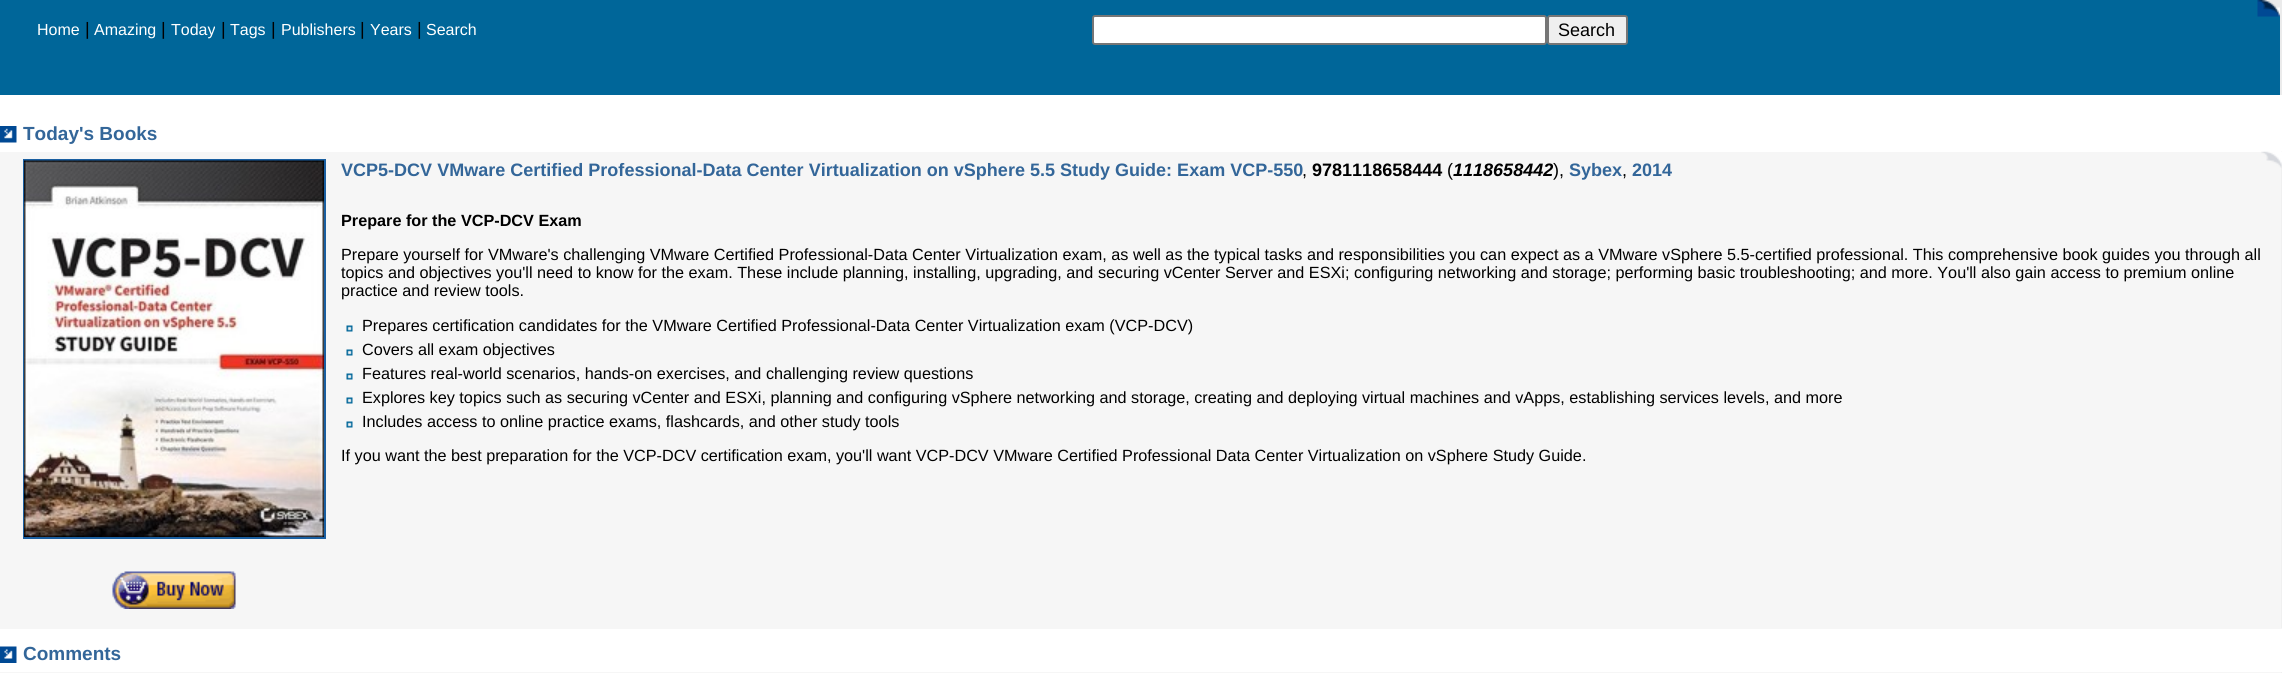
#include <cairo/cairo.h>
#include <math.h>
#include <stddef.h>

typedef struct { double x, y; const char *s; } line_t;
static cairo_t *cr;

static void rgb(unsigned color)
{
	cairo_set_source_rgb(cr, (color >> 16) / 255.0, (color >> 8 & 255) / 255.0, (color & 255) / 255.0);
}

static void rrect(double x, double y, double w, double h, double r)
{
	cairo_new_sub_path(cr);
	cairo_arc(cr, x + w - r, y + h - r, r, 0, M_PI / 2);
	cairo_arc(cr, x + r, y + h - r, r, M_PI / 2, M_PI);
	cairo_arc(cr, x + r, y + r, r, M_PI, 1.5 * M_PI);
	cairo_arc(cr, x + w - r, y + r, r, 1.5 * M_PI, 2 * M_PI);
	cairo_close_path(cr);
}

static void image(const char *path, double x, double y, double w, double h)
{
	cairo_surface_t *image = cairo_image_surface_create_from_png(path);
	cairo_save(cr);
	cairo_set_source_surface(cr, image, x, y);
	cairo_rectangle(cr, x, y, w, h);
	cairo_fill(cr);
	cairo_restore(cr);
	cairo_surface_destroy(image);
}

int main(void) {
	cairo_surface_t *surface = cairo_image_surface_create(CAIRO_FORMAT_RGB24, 2282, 673);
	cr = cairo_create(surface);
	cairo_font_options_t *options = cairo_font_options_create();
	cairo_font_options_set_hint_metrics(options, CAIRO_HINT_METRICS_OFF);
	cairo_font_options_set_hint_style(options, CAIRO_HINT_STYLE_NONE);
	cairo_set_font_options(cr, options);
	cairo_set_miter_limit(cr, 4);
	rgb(0xffffff);
	cairo_paint(cr);
	rgb(0xebebeb);
	cairo_rectangle(cr, 2280, 0, 2, 95);
	cairo_fill(cr);
	rgb(0x006699);
	cairo_rectangle(cr, 0, 0, 2280, 95);
	cairo_fill(cr);
	image("img/1.png", 2257, 0, 23, 17);
	rgb(0xffffff);
	rrect(1093, 16, 453, 28, 2);
	cairo_fill_preserve(cr);
	rgb(0x767676);
	cairo_stroke(cr);
	rgb(0xefefef);
	rrect(1548, 16, 79, 28, 2);
	cairo_fill_preserve(cr);
	rgb(0x767676);
	cairo_stroke(cr);
	image("img/2.png", 0, 126, 17, 17);
	rgb(0xf6f6f6);
	cairo_rectangle(cr, 0, 152, 2282, 477);
	cairo_fill(cr);
	image("img/3.png", 2281, 151, 1, 477);
	cairo_rectangle(cr, 24, 160, 301, 378);
	rgb(0x1a5fa1);
	cairo_stroke(cr);
	image("img/4.png", 24, 160, 300, 377);
	image("img/5.png", 112, 571, 124, 38);
	image("img/6.png", 2261, 151, 21, 17);
	image("img/7.png", 346, 325, 7, 7);
	image("img/7.png", 346, 349, 7, 7);
	image("img/7.png", 346, 373, 7, 7);
	image("img/7.png", 346, 397, 7, 7);
	image("img/7.png", 346, 421, 7, 7);
	image("img/8.png", 0, 646, 17, 17);
	rgb(0xf6f6f6);
	cairo_rectangle(cr, 0, 672, 2282, 1);
	cairo_fill(cr);
	rgb(0xf0f0f0);
	cairo_rectangle(cr, 2281, 672, 1, 1);
	cairo_fill(cr);
	cairo_select_font_face(cr, "Liberation Sans", CAIRO_FONT_SLANT_NORMAL, CAIRO_FONT_WEIGHT_NORMAL);
	cairo_set_font_size(cr, 16);
	rgb(0xffffff);
	cairo_move_to(cr, 37, 35);
	cairo_show_text(cr, "Home");
	cairo_set_font_size(cr, 18.02);
	rgb(0x000000);
	cairo_move_to(cr, 85, 35);
	cairo_show_text(cr, "|");
	cairo_set_font_size(cr, 16);
	rgb(0xffffff);
	cairo_move_to(cr, 94, 35);
	cairo_show_text(cr, "Amazing");
	cairo_set_font_size(cr, 18.02);
	rgb(0x000000);
	cairo_move_to(cr, 161, 35);
	cairo_show_text(cr, "|");
	cairo_set_font_size(cr, 16);
	rgb(0xffffff);
	cairo_move_to(cr, 171, 35);
	cairo_show_text(cr, "Today");
	cairo_set_font_size(cr, 18.02);
	rgb(0x000000);
	cairo_move_to(cr, 221, 35);
	cairo_show_text(cr, "|");
	cairo_set_font_size(cr, 16);
	rgb(0xffffff);
	cairo_move_to(cr, 230, 35);
	cairo_show_text(cr, "Tags");
	cairo_set_font_size(cr, 18.02);
	rgb(0x000000);
	cairo_move_to(cr, 271, 35);
	cairo_show_text(cr, "|");
	cairo_set_font_size(cr, 16);
	rgb(0xffffff);
	cairo_move_to(cr, 281, 35);
	cairo_show_text(cr, "Publishers");
	cairo_set_font_size(cr, 18.02);
	rgb(0x000000);
	cairo_move_to(cr, 360, 35);
	cairo_show_text(cr, "|");
	cairo_set_font_size(cr, 16);
	rgb(0xffffff);
	cairo_move_to(cr, 370, 35);
	cairo_show_text(cr, "Years");
	cairo_set_font_size(cr, 18.02);
	rgb(0x000000);
	cairo_move_to(cr, 417, 35);
	cairo_show_text(cr, "|");
	cairo_set_font_size(cr, 16);
	rgb(0xffffff);
	cairo_move_to(cr, 426, 35);
	cairo_show_text(cr, "Search");
	cairo_set_font_size(cr, 18);
	rgb(0x000000);
	cairo_move_to(cr, 1558, 36);
	cairo_show_text(cr, "Search");
	cairo_select_font_face(cr, "Liberation Sans", CAIRO_FONT_SLANT_NORMAL, CAIRO_FONT_WEIGHT_BOLD);
	cairo_set_font_size(cr, 19);
	rgb(0x336699);
	cairo_move_to(cr, 23, 140);
	cairo_show_text(cr, "Today's Books");
	cairo_set_font_size(cr, 18.02);
	cairo_move_to(cr, 341, 176);
	cairo_show_text(cr, "VCP5-DCV VMware Certified Professional-Data Center Virtualization on vSphere 5.5 Study Guide: Exam VCP-550");
	cairo_select_font_face(cr, "Liberation Sans", CAIRO_FONT_SLANT_NORMAL, CAIRO_FONT_WEIGHT_NORMAL);
	rgb(0x000000);
	cairo_move_to(cr, 1302, 176);
	cairo_show_text(cr, ",");
	cairo_select_font_face(cr, "Liberation Sans", CAIRO_FONT_SLANT_NORMAL, CAIRO_FONT_WEIGHT_BOLD);
	cairo_move_to(cr, 1312, 176);
	cairo_show_text(cr, "9781118658444");
	cairo_select_font_face(cr, "Liberation Sans", CAIRO_FONT_SLANT_NORMAL, CAIRO_FONT_WEIGHT_NORMAL);
	cairo_move_to(cr, 1447, 176);
	cairo_show_text(cr, "(");
	cairo_select_font_face(cr, "Liberation Sans", CAIRO_FONT_SLANT_ITALIC, CAIRO_FONT_WEIGHT_BOLD);
	cairo_move_to(cr, 1453, 176);
	cairo_show_text(cr, "1118658442");
	cairo_select_font_face(cr, "Liberation Sans", CAIRO_FONT_SLANT_NORMAL, CAIRO_FONT_WEIGHT_NORMAL);
	cairo_move_to(cr, 1553, 176);
	cairo_show_text(cr, "),");
	cairo_select_font_face(cr, "Liberation Sans", CAIRO_FONT_SLANT_NORMAL, CAIRO_FONT_WEIGHT_BOLD);
	rgb(0x336699);
	cairo_move_to(cr, 1569, 176);
	cairo_show_text(cr, "Sybex");
	cairo_select_font_face(cr, "Liberation Sans", CAIRO_FONT_SLANT_NORMAL, CAIRO_FONT_WEIGHT_NORMAL);
	rgb(0x000000);
	cairo_move_to(cr, 1622, 176);
	cairo_show_text(cr, ",");
	cairo_select_font_face(cr, "Liberation Sans", CAIRO_FONT_SLANT_NORMAL, CAIRO_FONT_WEIGHT_BOLD);
	rgb(0x336699);
	cairo_move_to(cr, 1632, 176);
	cairo_show_text(cr, "2014");
	cairo_set_font_size(cr, 16.22);
	rgb(0x000000);
	cairo_move_to(cr, 341, 226);
	cairo_show_text(cr, "Prepare for the VCP-DCV Exam");
	cairo_select_font_face(cr, "Liberation Sans", CAIRO_FONT_SLANT_NORMAL, CAIRO_FONT_WEIGHT_NORMAL);
	{
		static const line_t items[] = {
			{341, 260, "Prepare yourself for VMware's challenging VMware Certified Professional-Data Center Virtualization exam, as well as the typical tasks and responsibilities you can expect as a VMware vSphere 5.5-certified professional. This comprehensive book guides you through all"},
			{341, 278, "topics and objectives you'll need to know for the exam. These include planning, installing, upgrading, and securing vCenter Server and ESXi; configuring networking and storage; performing basic troubleshooting; and more. You'll also gain access to premium online"},
			{341, 296, "practice and review tools."},
			{362, 331, "Prepares certification candidates for the VMware Certified Professional-Data Center Virtualization exam (VCP-DCV)"},
			{362, 355, "Covers all exam objectives"},
			{362, 379, "Features real-world scenarios, hands-on exercises, and challenging review questions"},
			{362, 403, "Explores key topics such as securing vCenter and ESXi, planning and configuring vSphere networking and storage, creating and deploying virtual machines and vApps, establishing services levels, and more"},
			{362, 427, "Includes access to online practice exams, flashcards, and other study tools"},
			{341, 461, "If you want the best preparation for the VCP-DCV certification exam, you'll want VCP-DCV VMware Certified Professional Data Center Virtualization on vSphere Study Guide."},
		};
		for (size_t i = 0; i < sizeof items / sizeof *items; i++) {
			cairo_move_to(cr, items[i].x, items[i].y);
			cairo_show_text(cr, items[i].s);
		}
	}
	cairo_select_font_face(cr, "Liberation Sans", CAIRO_FONT_SLANT_NORMAL, CAIRO_FONT_WEIGHT_BOLD);
	cairo_set_font_size(cr, 19);
	rgb(0x336699);
	cairo_move_to(cr, 23, 660);
	cairo_show_text(cr, "Comments");
	cairo_surface_write_to_png(surface, "page.png");
	cairo_font_options_destroy(options);
	cairo_destroy(cr);
	cairo_surface_destroy(surface);
	return 0;
}
